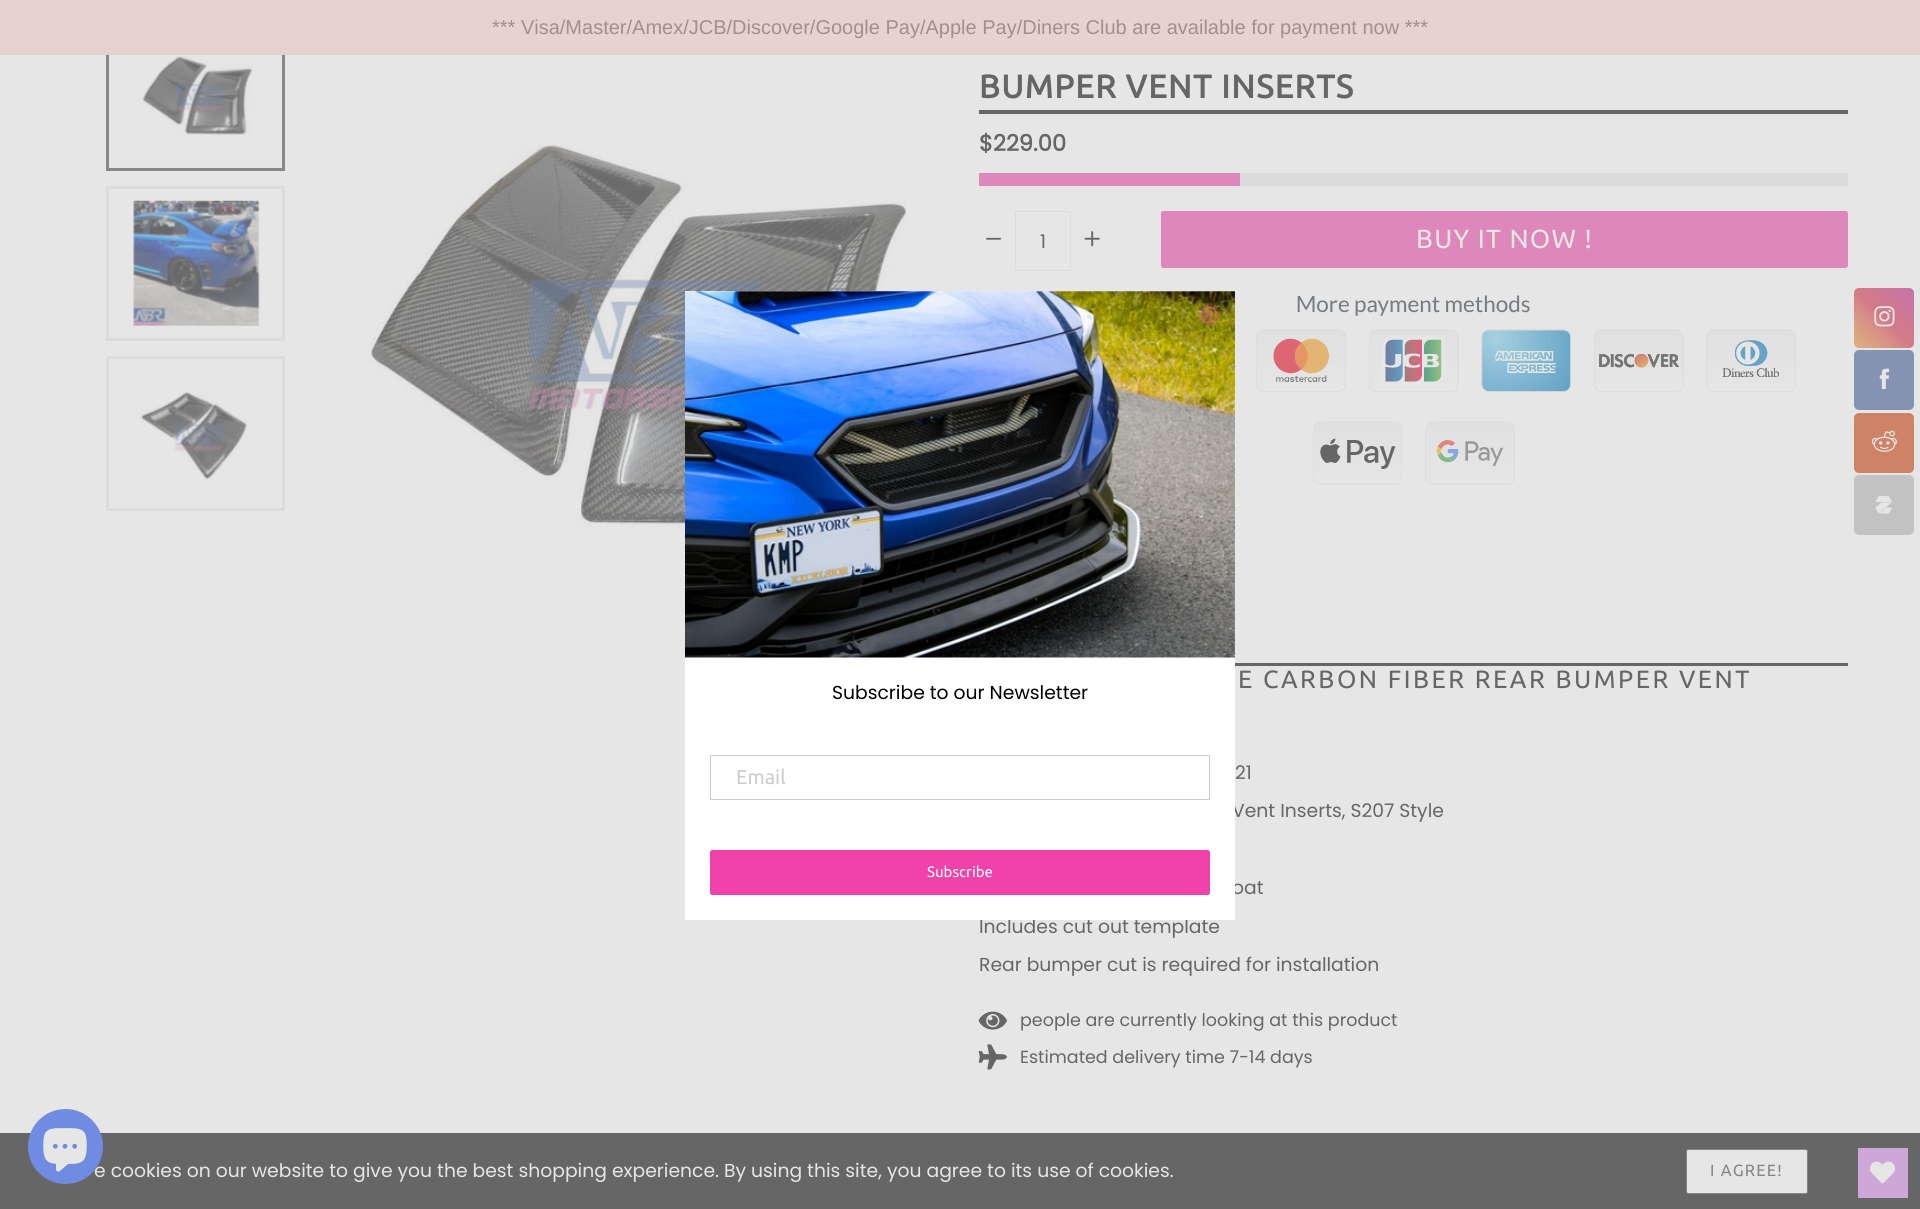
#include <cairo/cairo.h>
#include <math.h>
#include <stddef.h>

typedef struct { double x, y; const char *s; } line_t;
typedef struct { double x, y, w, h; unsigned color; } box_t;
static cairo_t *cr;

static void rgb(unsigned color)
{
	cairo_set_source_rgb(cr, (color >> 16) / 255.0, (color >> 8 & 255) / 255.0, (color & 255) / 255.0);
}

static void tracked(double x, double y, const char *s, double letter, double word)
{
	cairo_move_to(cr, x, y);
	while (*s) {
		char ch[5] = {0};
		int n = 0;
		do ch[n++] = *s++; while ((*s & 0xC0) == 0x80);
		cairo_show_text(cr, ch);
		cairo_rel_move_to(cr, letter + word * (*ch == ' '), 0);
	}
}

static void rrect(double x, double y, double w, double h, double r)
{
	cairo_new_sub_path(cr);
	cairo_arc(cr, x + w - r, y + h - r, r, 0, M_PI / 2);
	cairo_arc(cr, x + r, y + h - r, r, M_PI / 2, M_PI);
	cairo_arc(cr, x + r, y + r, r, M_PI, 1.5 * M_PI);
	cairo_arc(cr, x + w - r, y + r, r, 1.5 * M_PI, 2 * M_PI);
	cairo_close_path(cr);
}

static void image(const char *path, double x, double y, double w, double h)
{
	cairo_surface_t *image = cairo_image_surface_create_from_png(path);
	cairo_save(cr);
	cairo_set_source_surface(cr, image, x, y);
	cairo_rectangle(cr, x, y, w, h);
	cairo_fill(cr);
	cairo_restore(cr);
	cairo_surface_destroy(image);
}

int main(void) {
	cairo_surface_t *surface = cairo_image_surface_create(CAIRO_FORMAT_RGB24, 1920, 1209);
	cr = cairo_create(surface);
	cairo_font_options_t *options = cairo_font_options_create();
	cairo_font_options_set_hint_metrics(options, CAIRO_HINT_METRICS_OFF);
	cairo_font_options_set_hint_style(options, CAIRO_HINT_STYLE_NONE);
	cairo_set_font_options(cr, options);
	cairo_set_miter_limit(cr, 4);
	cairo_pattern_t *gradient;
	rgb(0xe6e6e6);
	cairo_paint(cr);
	cairo_rectangle(cr, 107.5, 17.5, 176, 152);
	rgb(0x858789);
	cairo_set_line_width(cr, 3);
	cairo_stroke(cr);
	rgb(0xe6d3cf);
	cairo_rectangle(cr, 0, 0, 1920, 55);
	cairo_fill(cr);
	image("img/1.png", 142, 56, 111, 79);
	cairo_rectangle(cr, 107.5, 187.5, 176, 152);
	rgb(0xdcdcdc);
	cairo_stroke(cr);
	image("img/2.png", 133, 200, 127, 126);
	cairo_rectangle(cr, 107.5, 357.5, 176, 152);
	cairo_stroke(cr);
	image("img/3.png", 140, 391, 107, 89);
	image("img/4.png", 368, 143, 539, 385);
	{
		static const box_t items[] = {
			{979, 110, 869, 4, 0x666666},
			{1240, 173, 608, 13, 0xdbdbdb},
			{979, 173, 261, 13, 0xde87ba},
		};
		for (size_t i = 0; i < sizeof items / sizeof *items; i++) {
			rgb(items[i].color);
			cairo_rectangle(cr, items[i].x, items[i].y, items[i].w, items[i].h);
			cairo_fill(cr);
		}
	}
	image("img/5.png", 986, 237, 16, 3);
	cairo_rectangle(cr, 1015.5, 211.5, 55, 59);
	rgb(0xdcdcdc);
	cairo_set_line_width(cr, 1);
	cairo_stroke(cr);
	image("img/6.png", 1084, 231, 16, 16);
	rgb(0xde87ba);
	rrect(1161, 211, 687, 57, 2.5);
	cairo_fill(cr);
	image("img/7.png", 1256, 295, 540, 190);
	rgb(0x666666);
	cairo_rectangle(cr, 1235, 663, 613, 3);
	cairo_fill(cr);
	image("img/8.png", 978, 1011, 29, 19);
	image("img/9.png", 978, 1044, 29, 26);
	cairo_rectangle(cr, 0, 1133, 1920, 76);
	cairo_fill(cr);
	rgb(0xe6e6e6);
	rrect(1686.5, 1149.5, 121, 44, 2);
	cairo_fill_preserve(cr);
	rgb(0x858789);
	cairo_stroke(cr);
	gradient = cairo_pattern_create_linear(1854, 348, 1914, 288);
	cairo_pattern_add_color_stop_rgba(gradient, 0, 0.871, 0.69, 0.502, 1);
	cairo_pattern_add_color_stop_rgba(gradient, 0.25, 0.851, 0.604, 0.518, 1);
	cairo_pattern_add_color_stop_rgba(gradient, 0.5, 0.831, 0.478, 0.533, 1);
	cairo_pattern_add_color_stop_rgba(gradient, 0.75, 0.8, 0.471, 0.6, 1);
	cairo_pattern_add_color_stop_rgba(gradient, 1, 0.769, 0.447, 0.667, 1);
	cairo_set_source(cr, gradient);
	cairo_pattern_destroy(gradient);
	rrect(1854, 288, 60, 60, 5);
	cairo_fill(cr);
	image("img/10.png", 1874, 306, 21, 21);
	rgb(0x8493b2);
	rrect(1854, 350, 60, 60, 5);
	cairo_fill(cr);
	image("img/11.png", 1879, 368, 11, 21);
	rgb(0xce8266);
	rrect(1854, 413, 60, 60, 5);
	cairo_fill(cr);
	image("img/12.png", 1871, 430, 26, 22);
	rgb(0xc2c2c2);
	rrect(1854, 475, 60, 60, 5);
	cairo_fill(cr);
	image("img/13.png", 1875, 496, 17, 18);
	rgb(0xcca7d7);
	cairo_rectangle(cr, 1858, 1148, 50, 50);
	cairo_fill(cr);
	image("img/17.png", 1870, 1161, 25, 23);
	cairo_select_font_face(cr, "Liberation Sans", CAIRO_FONT_SLANT_NORMAL, CAIRO_FONT_WEIGHT_NORMAL);
	cairo_set_font_size(cr, 20);
	rgb(0xa68d88);
	cairo_move_to(cr, 492, 34);
	cairo_show_text(cr, "*** Visa/Master/Amex/JCB/Discover/Google Pay/Apple Pay/Diners Club are available for payment now ***");
	cairo_select_font_face(cr, "Ubuntu", CAIRO_FONT_SLANT_NORMAL, CAIRO_FONT_WEIGHT_BOLD);
	cairo_set_font_size(cr, 32.5);
	rgb(0x666666);
	tracked(979, 98, "BUMPER VENT INSERTS", 1.25, 0);
	cairo_select_font_face(cr, "Poppins", CAIRO_FONT_SLANT_NORMAL, CAIRO_FONT_WEIGHT_BOLD);
	cairo_set_font_size(cr, 22.5);
	cairo_move_to(cr, 979, 151);
	cairo_show_text(cr, "$229.00");
	cairo_select_font_face(cr, "Poppins", CAIRO_FONT_SLANT_NORMAL, CAIRO_FONT_WEIGHT_NORMAL);
	cairo_set_font_size(cr, 18.75);
	cairo_move_to(cr, 1040, 248);
	cairo_show_text(cr, "1");
	cairo_select_font_face(cr, "Ubuntu", CAIRO_FONT_SLANT_NORMAL, CAIRO_FONT_WEIGHT_NORMAL);
	cairo_set_font_size(cr, 26.25);
	rgb(0xe6e6e6);
	tracked(1416, 248, "BUY IT NOW !", 1.25, 0);
	cairo_set_font_size(cr, 25);
	rgb(0x666666);
	tracked(1238, 688, "E CARBON FIBER REAR BUMPER VENT", 2.5, 0);
	cairo_select_font_face(cr, "Poppins", CAIRO_FONT_SLANT_NORMAL, CAIRO_FONT_WEIGHT_NORMAL);
	cairo_set_font_size(cr, 18.75);
	{
		static const line_t items[] = {
			{1235, 779, "21"},
			{1232, 817, "Vent Inserts, S207 Style"},
			{1232, 894, "oat"},
			{979, 933, "Includes cut out template"},
			{979, 971, "Rear bumper cut is required for installation"},
		};
		for (size_t i = 0; i < sizeof items / sizeof *items; i++) {
			cairo_move_to(cr, items[i].x, items[i].y);
			cairo_show_text(cr, items[i].s);
		}
	}
	cairo_set_font_size(cr, 17.5);
	cairo_move_to(cr, 1020, 1026);
	cairo_show_text(cr, "people are currently looking at this product");
	cairo_move_to(cr, 1020, 1063);
	cairo_show_text(cr, "Estimated delivery time 7-14 days");
	cairo_set_font_size(cr, 18.75);
	rgb(0xe6e6e6);
	cairo_move_to(cr, 94, 1177);
	cairo_show_text(cr, "e cookies on our website to give you the best shopping experience. By using this site, you agree to its use of cookies.");
	cairo_select_font_face(cr, "Ubuntu", CAIRO_FONT_SLANT_NORMAL, CAIRO_FONT_WEIGHT_NORMAL);
	cairo_set_font_size(cr, 16.25);
	rgb(0x858789);
	tracked(1710, 1176, "I AGREE!", 1.25, 0);
	rgb(0xffffff);
	cairo_rectangle(cr, 685, 291, 550, 629);
	cairo_fill(cr);
	image("img/15.png", 685, 291, 550, 367);
	image("img/14.png", 1200, 306, 18, 18);
	cairo_select_font_face(cr, "Poppins", CAIRO_FONT_SLANT_NORMAL, CAIRO_FONT_WEIGHT_NORMAL);
	cairo_set_font_size(cr, 18.75);
	rgb(0x000000);
	cairo_move_to(cr, 832, 699);
	cairo_show_text(cr, "Subscribe to our Newsletter");
	cairo_rectangle(cr, 710.5, 755.5, 499, 44);
	rgb(0xcccccc);
	cairo_stroke(cr);
	cairo_select_font_face(cr, "Ubuntu", CAIRO_FONT_SLANT_NORMAL, CAIRO_FONT_WEIGHT_NORMAL);
	cairo_set_font_size(cr, 20);
	cairo_move_to(cr, 736, 784);
	cairo_show_text(cr, "Email");
	rgb(0xf042a8);
	rrect(710.5, 850.5, 499, 44, 2);
	cairo_fill_preserve(cr);
	cairo_stroke(cr);
	cairo_set_font_size(cr, 15);
	rgb(0xffffff);
	cairo_move_to(cr, 927, 877);
	cairo_show_text(cr, "Subscribe");
	rgb(0x708ce2);
	cairo_new_path(cr);
	cairo_arc(cr, 65.5, 1146.5, 37.5, 0, 2 * M_PI);
	cairo_fill(cr);
	image("img/16.png", 43, 1128, 44, 44);
	cairo_surface_write_to_png(surface, "page.png");
	cairo_font_options_destroy(options);
	cairo_destroy(cr);
	cairo_surface_destroy(surface);
	return 0;
}
